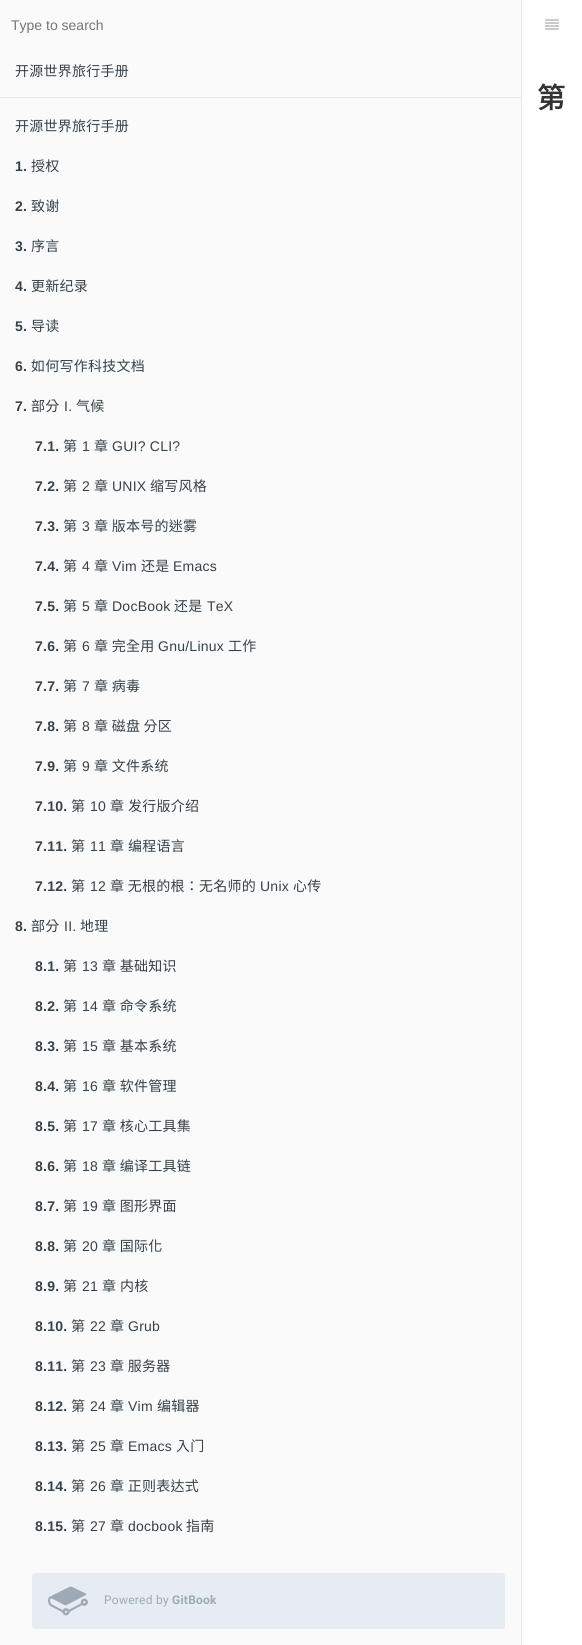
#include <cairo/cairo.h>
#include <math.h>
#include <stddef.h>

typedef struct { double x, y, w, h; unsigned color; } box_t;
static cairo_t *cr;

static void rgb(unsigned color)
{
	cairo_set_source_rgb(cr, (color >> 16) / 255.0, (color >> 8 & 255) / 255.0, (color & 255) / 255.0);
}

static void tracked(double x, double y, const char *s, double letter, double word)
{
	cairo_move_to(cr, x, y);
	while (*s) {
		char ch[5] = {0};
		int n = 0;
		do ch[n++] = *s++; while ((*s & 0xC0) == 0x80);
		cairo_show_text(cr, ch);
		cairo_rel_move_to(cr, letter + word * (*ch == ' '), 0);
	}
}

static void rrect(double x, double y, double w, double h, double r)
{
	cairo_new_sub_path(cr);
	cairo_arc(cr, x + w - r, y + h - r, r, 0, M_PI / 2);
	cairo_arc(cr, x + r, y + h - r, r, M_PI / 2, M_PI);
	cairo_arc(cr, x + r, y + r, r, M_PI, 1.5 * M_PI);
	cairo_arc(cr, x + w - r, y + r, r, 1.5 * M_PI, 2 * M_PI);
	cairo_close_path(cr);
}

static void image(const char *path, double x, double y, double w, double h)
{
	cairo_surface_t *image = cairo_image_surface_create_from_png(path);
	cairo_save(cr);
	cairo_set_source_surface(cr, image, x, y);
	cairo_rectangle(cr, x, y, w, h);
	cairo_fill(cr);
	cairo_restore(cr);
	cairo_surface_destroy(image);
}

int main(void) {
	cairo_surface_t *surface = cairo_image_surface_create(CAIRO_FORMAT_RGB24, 582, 1645);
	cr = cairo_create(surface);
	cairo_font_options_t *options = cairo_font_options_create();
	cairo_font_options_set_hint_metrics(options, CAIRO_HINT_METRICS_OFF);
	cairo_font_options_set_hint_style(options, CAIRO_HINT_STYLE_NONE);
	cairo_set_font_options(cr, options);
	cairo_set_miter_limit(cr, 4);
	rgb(0xffffff);
	cairo_paint(cr);
	{
		static const box_t items[] = {
			{0, 0, 521, 1645, 0xfafafa},
			{521, 0, 1, 1645, 0xe9e9e9},
			{0, 97, 521, 1, 0xe9e9e9},
		};
		for (size_t i = 0; i < sizeof items / sizeof *items; i++) {
			rgb(items[i].color);
			cairo_rectangle(cr, items[i].x, items[i].y, items[i].w, items[i].h);
			cairo_fill(cr);
		}
	}
	rgb(0xe6ecf1);
	rrect(32, 1573, 473, 56, 3);
	cairo_fill(cr);
	image("img/1.png", 48, 1586, 40, 30);
	image("img/2.png", 545, 19, 14, 11);
	cairo_select_font_face(cr, "Liberation Sans", CAIRO_FONT_SLANT_NORMAL, CAIRO_FONT_WEIGHT_NORMAL);
	cairo_set_font_size(cr, 14);
	rgb(0x757575);
	cairo_move_to(cr, 11, 30);
	cairo_show_text(cr, "Type to search");
	cairo_select_font_face(cr, "Noto Sans CJK TC", CAIRO_FONT_SLANT_NORMAL, CAIRO_FONT_WEIGHT_NORMAL);
	rgb(0x364149);
	tracked(15, 76, "开源世界旅行手册", 0.25, 0);
	tracked(15, 131, "开源世界旅行手册", 0.25, 0);
	cairo_select_font_face(cr, "Liberation Sans", CAIRO_FONT_SLANT_NORMAL, CAIRO_FONT_WEIGHT_BOLD);
	tracked(15, 171, "1.", 0.25, 0);
	cairo_select_font_face(cr, "Noto Sans CJK TC", CAIRO_FONT_SLANT_NORMAL, CAIRO_FONT_WEIGHT_NORMAL);
	tracked(31, 171, "授权", 0.25, 0);
	cairo_select_font_face(cr, "Liberation Sans", CAIRO_FONT_SLANT_NORMAL, CAIRO_FONT_WEIGHT_BOLD);
	tracked(15, 211, "2.", 0.25, 0);
	cairo_select_font_face(cr, "Noto Sans CJK TC", CAIRO_FONT_SLANT_NORMAL, CAIRO_FONT_WEIGHT_NORMAL);
	tracked(31, 211, "致谢", 0.25, 0);
	cairo_select_font_face(cr, "Liberation Sans", CAIRO_FONT_SLANT_NORMAL, CAIRO_FONT_WEIGHT_BOLD);
	tracked(15, 251, "3.", 0.25, 0);
	cairo_select_font_face(cr, "Noto Sans CJK TC", CAIRO_FONT_SLANT_NORMAL, CAIRO_FONT_WEIGHT_NORMAL);
	tracked(31, 251, "序言", 0.25, 0);
	cairo_select_font_face(cr, "Liberation Sans", CAIRO_FONT_SLANT_NORMAL, CAIRO_FONT_WEIGHT_BOLD);
	tracked(15, 291, "4.", 0.25, 0);
	cairo_select_font_face(cr, "Noto Sans CJK TC", CAIRO_FONT_SLANT_NORMAL, CAIRO_FONT_WEIGHT_NORMAL);
	tracked(31, 291, "更新纪录", 0.25, 0);
	cairo_select_font_face(cr, "Liberation Sans", CAIRO_FONT_SLANT_NORMAL, CAIRO_FONT_WEIGHT_BOLD);
	tracked(15, 331, "5.", 0.25, 0);
	cairo_select_font_face(cr, "Noto Sans CJK TC", CAIRO_FONT_SLANT_NORMAL, CAIRO_FONT_WEIGHT_NORMAL);
	tracked(31, 331, "导读", 0.25, 0);
	cairo_select_font_face(cr, "Liberation Sans", CAIRO_FONT_SLANT_NORMAL, CAIRO_FONT_WEIGHT_BOLD);
	tracked(15, 371, "6.", 0.25, 0);
	cairo_select_font_face(cr, "Noto Sans CJK TC", CAIRO_FONT_SLANT_NORMAL, CAIRO_FONT_WEIGHT_NORMAL);
	tracked(31, 371, "如何写作科技文档", 0.25, 0);
	cairo_select_font_face(cr, "Liberation Sans", CAIRO_FONT_SLANT_NORMAL, CAIRO_FONT_WEIGHT_BOLD);
	tracked(15, 411, "7.", 0.25, 0);
	cairo_select_font_face(cr, "Noto Sans CJK TC", CAIRO_FONT_SLANT_NORMAL, CAIRO_FONT_WEIGHT_NORMAL);
	tracked(31, 411, "部分", 0.25, 0);
	cairo_select_font_face(cr, "Liberation Sans", CAIRO_FONT_SLANT_NORMAL, CAIRO_FONT_WEIGHT_NORMAL);
	tracked(64, 411, "I.", 0.25, 0);
	cairo_select_font_face(cr, "Noto Sans CJK TC", CAIRO_FONT_SLANT_NORMAL, CAIRO_FONT_WEIGHT_NORMAL);
	tracked(76, 411, "气候", 0.25, 0);
	cairo_select_font_face(cr, "Liberation Sans", CAIRO_FONT_SLANT_NORMAL, CAIRO_FONT_WEIGHT_BOLD);
	tracked(35, 451, "7.1.", 0.25, 0);
	cairo_select_font_face(cr, "Noto Sans CJK TC", CAIRO_FONT_SLANT_NORMAL, CAIRO_FONT_WEIGHT_NORMAL);
	tracked(63, 451, "第", 0.25, 0);
	cairo_select_font_face(cr, "Liberation Sans", CAIRO_FONT_SLANT_NORMAL, CAIRO_FONT_WEIGHT_NORMAL);
	tracked(82, 451, "1", 0.25, 0);
	cairo_select_font_face(cr, "Noto Sans CJK TC", CAIRO_FONT_SLANT_NORMAL, CAIRO_FONT_WEIGHT_NORMAL);
	tracked(94, 451, "章", 0.25, 0);
	cairo_select_font_face(cr, "Liberation Sans", CAIRO_FONT_SLANT_NORMAL, CAIRO_FONT_WEIGHT_NORMAL);
	tracked(112, 451, "GUI? CLI?", 0.25, 0);
	cairo_select_font_face(cr, "Liberation Sans", CAIRO_FONT_SLANT_NORMAL, CAIRO_FONT_WEIGHT_BOLD);
	tracked(35, 491, "7.2.", 0.25, 0);
	cairo_select_font_face(cr, "Noto Sans CJK TC", CAIRO_FONT_SLANT_NORMAL, CAIRO_FONT_WEIGHT_NORMAL);
	tracked(63, 491, "第", 0.25, 0);
	cairo_select_font_face(cr, "Liberation Sans", CAIRO_FONT_SLANT_NORMAL, CAIRO_FONT_WEIGHT_NORMAL);
	tracked(82, 491, "2", 0.25, 0);
	cairo_select_font_face(cr, "Noto Sans CJK TC", CAIRO_FONT_SLANT_NORMAL, CAIRO_FONT_WEIGHT_NORMAL);
	tracked(94, 491, "章", 0.25, 0);
	cairo_select_font_face(cr, "Liberation Sans", CAIRO_FONT_SLANT_NORMAL, CAIRO_FONT_WEIGHT_NORMAL);
	tracked(112, 491, "UNIX", 0.25, 0);
	cairo_select_font_face(cr, "Noto Sans CJK TC", CAIRO_FONT_SLANT_NORMAL, CAIRO_FONT_WEIGHT_NORMAL);
	tracked(150, 491, "缩写风格", 0.25, 0);
	cairo_select_font_face(cr, "Liberation Sans", CAIRO_FONT_SLANT_NORMAL, CAIRO_FONT_WEIGHT_BOLD);
	tracked(35, 531, "7.3.", 0.25, 0);
	cairo_select_font_face(cr, "Noto Sans CJK TC", CAIRO_FONT_SLANT_NORMAL, CAIRO_FONT_WEIGHT_NORMAL);
	tracked(63, 531, "第", 0.25, 0);
	cairo_select_font_face(cr, "Liberation Sans", CAIRO_FONT_SLANT_NORMAL, CAIRO_FONT_WEIGHT_NORMAL);
	tracked(82, 531, "3", 0.25, 0);
	cairo_select_font_face(cr, "Noto Sans CJK TC", CAIRO_FONT_SLANT_NORMAL, CAIRO_FONT_WEIGHT_NORMAL);
	tracked(94, 531, "章 版本号的迷雾", 0.25, 0);
	cairo_select_font_face(cr, "Liberation Sans", CAIRO_FONT_SLANT_NORMAL, CAIRO_FONT_WEIGHT_BOLD);
	tracked(35, 571, "7.4.", 0.25, 0);
	cairo_select_font_face(cr, "Noto Sans CJK TC", CAIRO_FONT_SLANT_NORMAL, CAIRO_FONT_WEIGHT_NORMAL);
	tracked(63, 571, "第", 0.25, 0);
	cairo_select_font_face(cr, "Liberation Sans", CAIRO_FONT_SLANT_NORMAL, CAIRO_FONT_WEIGHT_NORMAL);
	tracked(82, 571, "4", 0.25, 0);
	cairo_select_font_face(cr, "Noto Sans CJK TC", CAIRO_FONT_SLANT_NORMAL, CAIRO_FONT_WEIGHT_NORMAL);
	tracked(94, 571, "章", 0.25, 0);
	cairo_select_font_face(cr, "Liberation Sans", CAIRO_FONT_SLANT_NORMAL, CAIRO_FONT_WEIGHT_NORMAL);
	tracked(112, 571, "Vim", 0.25, 0);
	cairo_select_font_face(cr, "Noto Sans CJK TC", CAIRO_FONT_SLANT_NORMAL, CAIRO_FONT_WEIGHT_NORMAL);
	tracked(141, 571, "还是", 0.25, 0);
	cairo_select_font_face(cr, "Liberation Sans", CAIRO_FONT_SLANT_NORMAL, CAIRO_FONT_WEIGHT_NORMAL);
	tracked(173, 571, "Emacs", 0.25, 0);
	cairo_select_font_face(cr, "Liberation Sans", CAIRO_FONT_SLANT_NORMAL, CAIRO_FONT_WEIGHT_BOLD);
	tracked(35, 611, "7.5.", 0.25, 0);
	cairo_select_font_face(cr, "Noto Sans CJK TC", CAIRO_FONT_SLANT_NORMAL, CAIRO_FONT_WEIGHT_NORMAL);
	tracked(63, 611, "第", 0.25, 0);
	cairo_select_font_face(cr, "Liberation Sans", CAIRO_FONT_SLANT_NORMAL, CAIRO_FONT_WEIGHT_NORMAL);
	tracked(82, 611, "5", 0.25, 0);
	cairo_select_font_face(cr, "Noto Sans CJK TC", CAIRO_FONT_SLANT_NORMAL, CAIRO_FONT_WEIGHT_NORMAL);
	tracked(94, 611, "章", 0.25, 0);
	cairo_select_font_face(cr, "Liberation Sans", CAIRO_FONT_SLANT_NORMAL, CAIRO_FONT_WEIGHT_NORMAL);
	tracked(112, 611, "DocBook", 0.25, 0);
	cairo_select_font_face(cr, "Noto Sans CJK TC", CAIRO_FONT_SLANT_NORMAL, CAIRO_FONT_WEIGHT_NORMAL);
	tracked(174, 611, "还是", 0.25, 0);
	cairo_select_font_face(cr, "Liberation Sans", CAIRO_FONT_SLANT_NORMAL, CAIRO_FONT_WEIGHT_NORMAL);
	tracked(207, 611, "TeX", 0.25, 0);
	cairo_select_font_face(cr, "Liberation Sans", CAIRO_FONT_SLANT_NORMAL, CAIRO_FONT_WEIGHT_BOLD);
	tracked(35, 651, "7.6.", 0.25, 0);
	cairo_select_font_face(cr, "Noto Sans CJK TC", CAIRO_FONT_SLANT_NORMAL, CAIRO_FONT_WEIGHT_NORMAL);
	tracked(63, 651, "第", 0.25, 0);
	cairo_select_font_face(cr, "Liberation Sans", CAIRO_FONT_SLANT_NORMAL, CAIRO_FONT_WEIGHT_NORMAL);
	tracked(82, 651, "6", 0.25, 0);
	cairo_select_font_face(cr, "Noto Sans CJK TC", CAIRO_FONT_SLANT_NORMAL, CAIRO_FONT_WEIGHT_NORMAL);
	tracked(94, 651, "章 完全用", 0.25, 0);
	cairo_select_font_face(cr, "Liberation Sans", CAIRO_FONT_SLANT_NORMAL, CAIRO_FONT_WEIGHT_NORMAL);
	tracked(158, 651, "Gnu/Linux", 0.25, 0);
	cairo_select_font_face(cr, "Noto Sans CJK TC", CAIRO_FONT_SLANT_NORMAL, CAIRO_FONT_WEIGHT_NORMAL);
	tracked(228, 651, "工作", 0.25, 0);
	cairo_select_font_face(cr, "Liberation Sans", CAIRO_FONT_SLANT_NORMAL, CAIRO_FONT_WEIGHT_BOLD);
	tracked(35, 691, "7.7.", 0.25, 0);
	cairo_select_font_face(cr, "Noto Sans CJK TC", CAIRO_FONT_SLANT_NORMAL, CAIRO_FONT_WEIGHT_NORMAL);
	tracked(63, 691, "第", 0.25, 0);
	cairo_select_font_face(cr, "Liberation Sans", CAIRO_FONT_SLANT_NORMAL, CAIRO_FONT_WEIGHT_NORMAL);
	tracked(82, 691, "7", 0.25, 0);
	cairo_select_font_face(cr, "Noto Sans CJK TC", CAIRO_FONT_SLANT_NORMAL, CAIRO_FONT_WEIGHT_NORMAL);
	tracked(94, 691, "章 病毒", 0.25, 0);
	cairo_select_font_face(cr, "Liberation Sans", CAIRO_FONT_SLANT_NORMAL, CAIRO_FONT_WEIGHT_BOLD);
	tracked(35, 731, "7.8.", 0.25, 0);
	cairo_select_font_face(cr, "Noto Sans CJK TC", CAIRO_FONT_SLANT_NORMAL, CAIRO_FONT_WEIGHT_NORMAL);
	tracked(63, 731, "第", 0.25, 0);
	cairo_select_font_face(cr, "Liberation Sans", CAIRO_FONT_SLANT_NORMAL, CAIRO_FONT_WEIGHT_NORMAL);
	tracked(82, 731, "8", 0.25, 0);
	cairo_select_font_face(cr, "Noto Sans CJK TC", CAIRO_FONT_SLANT_NORMAL, CAIRO_FONT_WEIGHT_NORMAL);
	tracked(94, 731, "章 磁盘 分区", 0.25, 0);
	cairo_select_font_face(cr, "Liberation Sans", CAIRO_FONT_SLANT_NORMAL, CAIRO_FONT_WEIGHT_BOLD);
	tracked(35, 771, "7.9.", 0.25, 0);
	cairo_select_font_face(cr, "Noto Sans CJK TC", CAIRO_FONT_SLANT_NORMAL, CAIRO_FONT_WEIGHT_NORMAL);
	tracked(63, 771, "第", 0.25, 0);
	cairo_select_font_face(cr, "Liberation Sans", CAIRO_FONT_SLANT_NORMAL, CAIRO_FONT_WEIGHT_NORMAL);
	tracked(82, 771, "9", 0.25, 0);
	cairo_select_font_face(cr, "Noto Sans CJK TC", CAIRO_FONT_SLANT_NORMAL, CAIRO_FONT_WEIGHT_NORMAL);
	tracked(94, 771, "章 文件系统", 0.25, 0);
	cairo_select_font_face(cr, "Liberation Sans", CAIRO_FONT_SLANT_NORMAL, CAIRO_FONT_WEIGHT_BOLD);
	tracked(35, 811, "7.10.", 0.25, 0);
	cairo_select_font_face(cr, "Noto Sans CJK TC", CAIRO_FONT_SLANT_NORMAL, CAIRO_FONT_WEIGHT_NORMAL);
	tracked(71, 811, "第", 0.25, 0);
	cairo_select_font_face(cr, "Liberation Sans", CAIRO_FONT_SLANT_NORMAL, CAIRO_FONT_WEIGHT_NORMAL);
	tracked(90, 811, "10", 0.25, 0);
	cairo_select_font_face(cr, "Noto Sans CJK TC", CAIRO_FONT_SLANT_NORMAL, CAIRO_FONT_WEIGHT_NORMAL);
	tracked(110, 811, "章", 0.25, 0);
	tracked(128, 811, "发行版介绍", 0.25, 0);
	cairo_select_font_face(cr, "Liberation Sans", CAIRO_FONT_SLANT_NORMAL, CAIRO_FONT_WEIGHT_BOLD);
	tracked(35, 851, "7.11.", 0.25, 0);
	cairo_select_font_face(cr, "Noto Sans CJK TC", CAIRO_FONT_SLANT_NORMAL, CAIRO_FONT_WEIGHT_NORMAL);
	tracked(71, 851, "第", 0.25, 0);
	cairo_select_font_face(cr, "Liberation Sans", CAIRO_FONT_SLANT_NORMAL, CAIRO_FONT_WEIGHT_NORMAL);
	tracked(90, 851, "11", 0.25, 0);
	cairo_select_font_face(cr, "Noto Sans CJK TC", CAIRO_FONT_SLANT_NORMAL, CAIRO_FONT_WEIGHT_NORMAL);
	tracked(110, 851, "章", 0.25, 0);
	tracked(128, 851, "编程语言", 0.25, 0);
	cairo_select_font_face(cr, "Liberation Sans", CAIRO_FONT_SLANT_NORMAL, CAIRO_FONT_WEIGHT_BOLD);
	tracked(35, 891, "7.12.", 0.25, 0);
	cairo_select_font_face(cr, "Noto Sans CJK TC", CAIRO_FONT_SLANT_NORMAL, CAIRO_FONT_WEIGHT_NORMAL);
	tracked(71, 891, "第", 0.25, 0);
	cairo_select_font_face(cr, "Liberation Sans", CAIRO_FONT_SLANT_NORMAL, CAIRO_FONT_WEIGHT_NORMAL);
	tracked(90, 891, "12", 0.25, 0);
	cairo_select_font_face(cr, "Noto Sans CJK TC", CAIRO_FONT_SLANT_NORMAL, CAIRO_FONT_WEIGHT_NORMAL);
	tracked(110, 891, "章 无根的根：无名师的", 0.25, 0);
	cairo_select_font_face(cr, "Liberation Sans", CAIRO_FONT_SLANT_NORMAL, CAIRO_FONT_WEIGHT_NORMAL);
	tracked(260, 891, "Unix", 0.25, 0);
	cairo_select_font_face(cr, "Noto Sans CJK TC", CAIRO_FONT_SLANT_NORMAL, CAIRO_FONT_WEIGHT_NORMAL);
	tracked(293, 891, "心传", 0.25, 0);
	cairo_select_font_face(cr, "Liberation Sans", CAIRO_FONT_SLANT_NORMAL, CAIRO_FONT_WEIGHT_BOLD);
	tracked(15, 931, "8.", 0.25, 0);
	cairo_select_font_face(cr, "Noto Sans CJK TC", CAIRO_FONT_SLANT_NORMAL, CAIRO_FONT_WEIGHT_NORMAL);
	tracked(31, 931, "部分", 0.25, 0);
	cairo_select_font_face(cr, "Liberation Sans", CAIRO_FONT_SLANT_NORMAL, CAIRO_FONT_WEIGHT_NORMAL);
	tracked(64, 931, "II.", 0.25, 0);
	cairo_select_font_face(cr, "Noto Sans CJK TC", CAIRO_FONT_SLANT_NORMAL, CAIRO_FONT_WEIGHT_NORMAL);
	tracked(80, 931, "地理", 0.25, 0);
	cairo_select_font_face(cr, "Liberation Sans", CAIRO_FONT_SLANT_NORMAL, CAIRO_FONT_WEIGHT_BOLD);
	tracked(35, 971, "8.1.", 0.25, 0);
	cairo_select_font_face(cr, "Noto Sans CJK TC", CAIRO_FONT_SLANT_NORMAL, CAIRO_FONT_WEIGHT_NORMAL);
	tracked(63, 971, "第", 0.25, 0);
	cairo_select_font_face(cr, "Liberation Sans", CAIRO_FONT_SLANT_NORMAL, CAIRO_FONT_WEIGHT_NORMAL);
	tracked(82, 971, "13", 0.25, 0);
	cairo_select_font_face(cr, "Noto Sans CJK TC", CAIRO_FONT_SLANT_NORMAL, CAIRO_FONT_WEIGHT_NORMAL);
	tracked(102, 971, "章 基础知识", 0.25, 0);
	cairo_select_font_face(cr, "Liberation Sans", CAIRO_FONT_SLANT_NORMAL, CAIRO_FONT_WEIGHT_BOLD);
	tracked(35, 1011, "8.2.", 0.25, 0);
	cairo_select_font_face(cr, "Noto Sans CJK TC", CAIRO_FONT_SLANT_NORMAL, CAIRO_FONT_WEIGHT_NORMAL);
	tracked(63, 1011, "第", 0.25, 0);
	cairo_select_font_face(cr, "Liberation Sans", CAIRO_FONT_SLANT_NORMAL, CAIRO_FONT_WEIGHT_NORMAL);
	tracked(82, 1011, "14", 0.25, 0);
	cairo_select_font_face(cr, "Noto Sans CJK TC", CAIRO_FONT_SLANT_NORMAL, CAIRO_FONT_WEIGHT_NORMAL);
	tracked(102, 1011, "章 命令系统", 0.25, 0);
	cairo_select_font_face(cr, "Liberation Sans", CAIRO_FONT_SLANT_NORMAL, CAIRO_FONT_WEIGHT_BOLD);
	tracked(35, 1051, "8.3.", 0.25, 0);
	cairo_select_font_face(cr, "Noto Sans CJK TC", CAIRO_FONT_SLANT_NORMAL, CAIRO_FONT_WEIGHT_NORMAL);
	tracked(63, 1051, "第", 0.25, 0);
	cairo_select_font_face(cr, "Liberation Sans", CAIRO_FONT_SLANT_NORMAL, CAIRO_FONT_WEIGHT_NORMAL);
	tracked(82, 1051, "15", 0.25, 0);
	cairo_select_font_face(cr, "Noto Sans CJK TC", CAIRO_FONT_SLANT_NORMAL, CAIRO_FONT_WEIGHT_NORMAL);
	tracked(102, 1051, "章 基本系统", 0.25, 0);
	cairo_select_font_face(cr, "Liberation Sans", CAIRO_FONT_SLANT_NORMAL, CAIRO_FONT_WEIGHT_BOLD);
	tracked(35, 1091, "8.4.", 0.25, 0);
	cairo_select_font_face(cr, "Noto Sans CJK TC", CAIRO_FONT_SLANT_NORMAL, CAIRO_FONT_WEIGHT_NORMAL);
	tracked(63, 1091, "第", 0.25, 0);
	cairo_select_font_face(cr, "Liberation Sans", CAIRO_FONT_SLANT_NORMAL, CAIRO_FONT_WEIGHT_NORMAL);
	tracked(82, 1091, "16", 0.25, 0);
	cairo_select_font_face(cr, "Noto Sans CJK TC", CAIRO_FONT_SLANT_NORMAL, CAIRO_FONT_WEIGHT_NORMAL);
	tracked(102, 1091, "章 软件管理", 0.25, 0);
	cairo_select_font_face(cr, "Liberation Sans", CAIRO_FONT_SLANT_NORMAL, CAIRO_FONT_WEIGHT_BOLD);
	tracked(35, 1131, "8.5.", 0.25, 0);
	cairo_select_font_face(cr, "Noto Sans CJK TC", CAIRO_FONT_SLANT_NORMAL, CAIRO_FONT_WEIGHT_NORMAL);
	tracked(63, 1131, "第", 0.25, 0);
	cairo_select_font_face(cr, "Liberation Sans", CAIRO_FONT_SLANT_NORMAL, CAIRO_FONT_WEIGHT_NORMAL);
	tracked(82, 1131, "17", 0.25, 0);
	cairo_select_font_face(cr, "Noto Sans CJK TC", CAIRO_FONT_SLANT_NORMAL, CAIRO_FONT_WEIGHT_NORMAL);
	tracked(102, 1131, "章 核心工具集", 0.25, 0);
	cairo_select_font_face(cr, "Liberation Sans", CAIRO_FONT_SLANT_NORMAL, CAIRO_FONT_WEIGHT_BOLD);
	tracked(35, 1171, "8.6.", 0.25, 0);
	cairo_select_font_face(cr, "Noto Sans CJK TC", CAIRO_FONT_SLANT_NORMAL, CAIRO_FONT_WEIGHT_NORMAL);
	tracked(63, 1171, "第", 0.25, 0);
	cairo_select_font_face(cr, "Liberation Sans", CAIRO_FONT_SLANT_NORMAL, CAIRO_FONT_WEIGHT_NORMAL);
	tracked(82, 1171, "18", 0.25, 0);
	cairo_select_font_face(cr, "Noto Sans CJK TC", CAIRO_FONT_SLANT_NORMAL, CAIRO_FONT_WEIGHT_NORMAL);
	tracked(102, 1171, "章 编译工具链", 0.25, 0);
	cairo_select_font_face(cr, "Liberation Sans", CAIRO_FONT_SLANT_NORMAL, CAIRO_FONT_WEIGHT_BOLD);
	tracked(35, 1211, "8.7.", 0.25, 0);
	cairo_select_font_face(cr, "Noto Sans CJK TC", CAIRO_FONT_SLANT_NORMAL, CAIRO_FONT_WEIGHT_NORMAL);
	tracked(63, 1211, "第", 0.25, 0);
	cairo_select_font_face(cr, "Liberation Sans", CAIRO_FONT_SLANT_NORMAL, CAIRO_FONT_WEIGHT_NORMAL);
	tracked(82, 1211, "19", 0.25, 0);
	cairo_select_font_face(cr, "Noto Sans CJK TC", CAIRO_FONT_SLANT_NORMAL, CAIRO_FONT_WEIGHT_NORMAL);
	tracked(102, 1211, "章 图形界面", 0.25, 0);
	cairo_select_font_face(cr, "Liberation Sans", CAIRO_FONT_SLANT_NORMAL, CAIRO_FONT_WEIGHT_BOLD);
	tracked(35, 1251, "8.8.", 0.25, 0);
	cairo_select_font_face(cr, "Noto Sans CJK TC", CAIRO_FONT_SLANT_NORMAL, CAIRO_FONT_WEIGHT_NORMAL);
	tracked(63, 1251, "第", 0.25, 0);
	cairo_select_font_face(cr, "Liberation Sans", CAIRO_FONT_SLANT_NORMAL, CAIRO_FONT_WEIGHT_NORMAL);
	tracked(82, 1251, "20", 0.25, 0);
	cairo_select_font_face(cr, "Noto Sans CJK TC", CAIRO_FONT_SLANT_NORMAL, CAIRO_FONT_WEIGHT_NORMAL);
	tracked(102, 1251, "章 国际化", 0.25, 0);
	cairo_select_font_face(cr, "Liberation Sans", CAIRO_FONT_SLANT_NORMAL, CAIRO_FONT_WEIGHT_BOLD);
	tracked(35, 1291, "8.9.", 0.25, 0);
	cairo_select_font_face(cr, "Noto Sans CJK TC", CAIRO_FONT_SLANT_NORMAL, CAIRO_FONT_WEIGHT_NORMAL);
	tracked(63, 1291, "第", 0.25, 0);
	cairo_select_font_face(cr, "Liberation Sans", CAIRO_FONT_SLANT_NORMAL, CAIRO_FONT_WEIGHT_NORMAL);
	tracked(82, 1291, "21", 0.25, 0);
	cairo_select_font_face(cr, "Noto Sans CJK TC", CAIRO_FONT_SLANT_NORMAL, CAIRO_FONT_WEIGHT_NORMAL);
	tracked(102, 1291, "章", 0.25, 0);
	tracked(120, 1291, "内核", 0.25, 0);
	cairo_select_font_face(cr, "Liberation Sans", CAIRO_FONT_SLANT_NORMAL, CAIRO_FONT_WEIGHT_BOLD);
	tracked(35, 1331, "8.10.", 0.25, 0);
	cairo_select_font_face(cr, "Noto Sans CJK TC", CAIRO_FONT_SLANT_NORMAL, CAIRO_FONT_WEIGHT_NORMAL);
	tracked(71, 1331, "第", 0.25, 0);
	cairo_select_font_face(cr, "Liberation Sans", CAIRO_FONT_SLANT_NORMAL, CAIRO_FONT_WEIGHT_NORMAL);
	tracked(90, 1331, "22", 0.25, 0);
	cairo_select_font_face(cr, "Noto Sans CJK TC", CAIRO_FONT_SLANT_NORMAL, CAIRO_FONT_WEIGHT_NORMAL);
	tracked(110, 1331, "章", 0.25, 0);
	cairo_select_font_face(cr, "Liberation Sans", CAIRO_FONT_SLANT_NORMAL, CAIRO_FONT_WEIGHT_NORMAL);
	tracked(128, 1331, "Grub", 0.25, 0);
	cairo_select_font_face(cr, "Liberation Sans", CAIRO_FONT_SLANT_NORMAL, CAIRO_FONT_WEIGHT_BOLD);
	tracked(35, 1371, "8.11.", 0.25, 0);
	cairo_select_font_face(cr, "Noto Sans CJK TC", CAIRO_FONT_SLANT_NORMAL, CAIRO_FONT_WEIGHT_NORMAL);
	tracked(71, 1371, "第", 0.25, 0);
	cairo_select_font_face(cr, "Liberation Sans", CAIRO_FONT_SLANT_NORMAL, CAIRO_FONT_WEIGHT_NORMAL);
	tracked(90, 1371, "23", 0.25, 0);
	cairo_select_font_face(cr, "Noto Sans CJK TC", CAIRO_FONT_SLANT_NORMAL, CAIRO_FONT_WEIGHT_NORMAL);
	tracked(110, 1371, "章 服务器", 0.25, 0);
	cairo_select_font_face(cr, "Liberation Sans", CAIRO_FONT_SLANT_NORMAL, CAIRO_FONT_WEIGHT_BOLD);
	tracked(35, 1411, "8.12.", 0.25, 0);
	cairo_select_font_face(cr, "Noto Sans CJK TC", CAIRO_FONT_SLANT_NORMAL, CAIRO_FONT_WEIGHT_NORMAL);
	tracked(71, 1411, "第", 0.25, 0);
	cairo_select_font_face(cr, "Liberation Sans", CAIRO_FONT_SLANT_NORMAL, CAIRO_FONT_WEIGHT_NORMAL);
	tracked(90, 1411, "24", 0.25, 0);
	cairo_select_font_face(cr, "Noto Sans CJK TC", CAIRO_FONT_SLANT_NORMAL, CAIRO_FONT_WEIGHT_NORMAL);
	tracked(110, 1411, "章", 0.25, 0);
	cairo_select_font_face(cr, "Liberation Sans", CAIRO_FONT_SLANT_NORMAL, CAIRO_FONT_WEIGHT_NORMAL);
	tracked(128, 1411, "Vim", 0.25, 0);
	cairo_select_font_face(cr, "Noto Sans CJK TC", CAIRO_FONT_SLANT_NORMAL, CAIRO_FONT_WEIGHT_NORMAL);
	tracked(157, 1411, "编辑器", 0.25, 0);
	cairo_select_font_face(cr, "Liberation Sans", CAIRO_FONT_SLANT_NORMAL, CAIRO_FONT_WEIGHT_BOLD);
	tracked(35, 1451, "8.13.", 0.25, 0);
	cairo_select_font_face(cr, "Noto Sans CJK TC", CAIRO_FONT_SLANT_NORMAL, CAIRO_FONT_WEIGHT_NORMAL);
	tracked(71, 1451, "第", 0.25, 0);
	cairo_select_font_face(cr, "Liberation Sans", CAIRO_FONT_SLANT_NORMAL, CAIRO_FONT_WEIGHT_NORMAL);
	tracked(90, 1451, "25", 0.25, 0);
	cairo_select_font_face(cr, "Noto Sans CJK TC", CAIRO_FONT_SLANT_NORMAL, CAIRO_FONT_WEIGHT_NORMAL);
	tracked(110, 1451, "章", 0.25, 0);
	cairo_select_font_face(cr, "Liberation Sans", CAIRO_FONT_SLANT_NORMAL, CAIRO_FONT_WEIGHT_NORMAL);
	tracked(128, 1451, "Emacs", 0.25, 0);
	cairo_select_font_face(cr, "Noto Sans CJK TC", CAIRO_FONT_SLANT_NORMAL, CAIRO_FONT_WEIGHT_NORMAL);
	tracked(176, 1451, "入门", 0.25, 0);
	cairo_select_font_face(cr, "Liberation Sans", CAIRO_FONT_SLANT_NORMAL, CAIRO_FONT_WEIGHT_BOLD);
	tracked(35, 1491, "8.14.", 0.25, 0);
	cairo_select_font_face(cr, "Noto Sans CJK TC", CAIRO_FONT_SLANT_NORMAL, CAIRO_FONT_WEIGHT_NORMAL);
	tracked(71, 1491, "第", 0.25, 0);
	cairo_select_font_face(cr, "Liberation Sans", CAIRO_FONT_SLANT_NORMAL, CAIRO_FONT_WEIGHT_NORMAL);
	tracked(90, 1491, "26", 0.25, 0);
	cairo_select_font_face(cr, "Noto Sans CJK TC", CAIRO_FONT_SLANT_NORMAL, CAIRO_FONT_WEIGHT_NORMAL);
	tracked(110, 1491, "章 正则表达式", 0.25, 0);
	cairo_select_font_face(cr, "Liberation Sans", CAIRO_FONT_SLANT_NORMAL, CAIRO_FONT_WEIGHT_BOLD);
	tracked(35, 1531, "8.15.", 0.25, 0);
	cairo_select_font_face(cr, "Noto Sans CJK TC", CAIRO_FONT_SLANT_NORMAL, CAIRO_FONT_WEIGHT_NORMAL);
	tracked(71, 1531, "第", 0.25, 0);
	cairo_select_font_face(cr, "Liberation Sans", CAIRO_FONT_SLANT_NORMAL, CAIRO_FONT_WEIGHT_NORMAL);
	tracked(90, 1531, "27", 0.25, 0);
	cairo_select_font_face(cr, "Noto Sans CJK TC", CAIRO_FONT_SLANT_NORMAL, CAIRO_FONT_WEIGHT_NORMAL);
	tracked(110, 1531, "章", 0.25, 0);
	cairo_select_font_face(cr, "Liberation Sans", CAIRO_FONT_SLANT_NORMAL, CAIRO_FONT_WEIGHT_NORMAL);
	tracked(128, 1531, "docbook", 0.25, 0);
	cairo_select_font_face(cr, "Noto Sans CJK TC", CAIRO_FONT_SLANT_NORMAL, CAIRO_FONT_WEIGHT_NORMAL);
	tracked(186, 1531, "指南", 0.25, 0);
	cairo_select_font_face(cr, "Roboto", CAIRO_FONT_SLANT_NORMAL, CAIRO_FONT_WEIGHT_NORMAL);
	cairo_set_font_size(cr, 12);
	rgb(0x9daab6);
	tracked(104, 1604, "Powered by", 0.25, 0);
	cairo_select_font_face(cr, "Roboto", CAIRO_FONT_SLANT_NORMAL, CAIRO_FONT_WEIGHT_BOLD);
	tracked(172, 1604, "GitBook", 0.25, 0);
	cairo_select_font_face(cr, "Noto Sans CJK TC", CAIRO_FONT_SLANT_NORMAL, CAIRO_FONT_WEIGHT_BOLD);
	cairo_set_font_size(cr, 28);
	rgb(0x333333);
	tracked(537, 108, "第", 0.25, 0);
	cairo_surface_write_to_png(surface, "page.png");
	cairo_font_options_destroy(options);
	cairo_destroy(cr);
	cairo_surface_destroy(surface);
	return 0;
}
